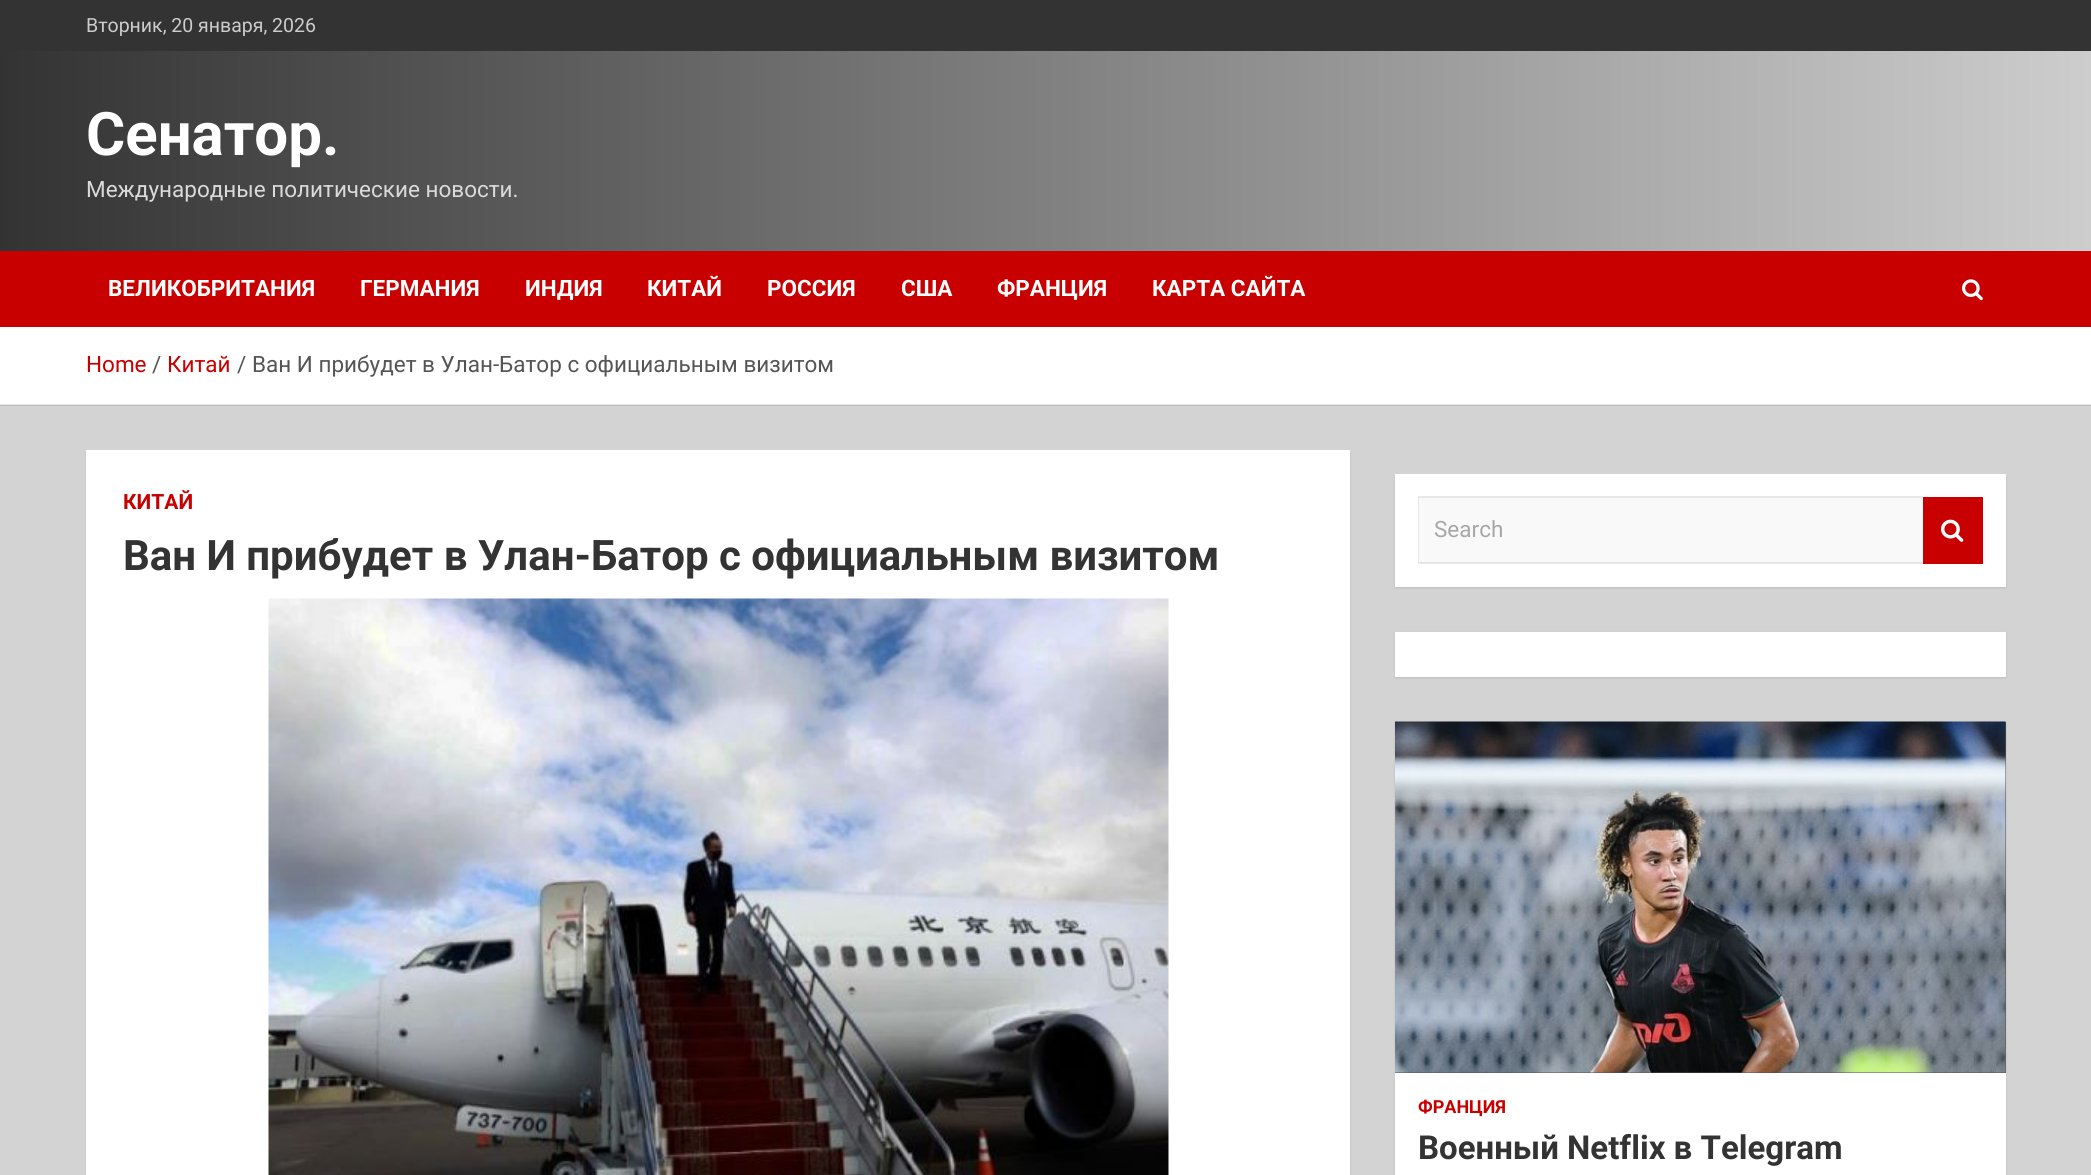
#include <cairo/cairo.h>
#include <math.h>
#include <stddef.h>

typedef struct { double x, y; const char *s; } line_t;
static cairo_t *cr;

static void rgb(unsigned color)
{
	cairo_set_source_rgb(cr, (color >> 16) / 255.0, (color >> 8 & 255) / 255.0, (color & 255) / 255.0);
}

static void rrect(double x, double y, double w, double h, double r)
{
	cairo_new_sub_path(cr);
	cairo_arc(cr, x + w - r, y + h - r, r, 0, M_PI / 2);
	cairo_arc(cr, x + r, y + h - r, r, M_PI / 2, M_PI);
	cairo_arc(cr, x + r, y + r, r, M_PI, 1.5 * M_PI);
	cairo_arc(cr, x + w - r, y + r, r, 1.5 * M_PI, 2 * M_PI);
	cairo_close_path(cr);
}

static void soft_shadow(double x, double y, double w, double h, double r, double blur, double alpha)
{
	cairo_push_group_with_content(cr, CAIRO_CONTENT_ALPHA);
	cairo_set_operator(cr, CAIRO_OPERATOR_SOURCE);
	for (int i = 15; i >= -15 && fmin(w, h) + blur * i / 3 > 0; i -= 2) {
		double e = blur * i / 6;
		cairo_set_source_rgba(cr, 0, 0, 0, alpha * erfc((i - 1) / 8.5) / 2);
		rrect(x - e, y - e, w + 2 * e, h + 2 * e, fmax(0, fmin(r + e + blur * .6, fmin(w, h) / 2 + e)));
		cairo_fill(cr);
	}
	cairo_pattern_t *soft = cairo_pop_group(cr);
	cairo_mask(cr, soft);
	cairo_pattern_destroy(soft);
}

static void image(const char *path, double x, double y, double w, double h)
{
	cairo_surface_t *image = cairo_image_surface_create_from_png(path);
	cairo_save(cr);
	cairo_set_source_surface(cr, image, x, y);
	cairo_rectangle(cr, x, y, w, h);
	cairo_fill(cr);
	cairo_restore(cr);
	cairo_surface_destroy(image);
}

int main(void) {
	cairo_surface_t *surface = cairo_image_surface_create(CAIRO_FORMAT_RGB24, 2091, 1175);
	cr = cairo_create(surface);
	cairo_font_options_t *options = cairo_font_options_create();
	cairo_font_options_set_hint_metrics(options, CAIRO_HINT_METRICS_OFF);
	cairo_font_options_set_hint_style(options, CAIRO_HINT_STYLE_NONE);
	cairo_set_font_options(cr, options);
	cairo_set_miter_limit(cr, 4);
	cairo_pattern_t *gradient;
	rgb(0xd3d3d3);
	cairo_paint(cr);
	rgb(0xbebebe);
	cairo_rectangle(cr, 0, 405, 2091, 1);
	cairo_fill(cr);
	rgb(0x333333);
	cairo_rectangle(cr, 0, 0, 2091, 51);
	cairo_fill(cr);
	gradient = cairo_pattern_create_linear(0, 151, 2091, 151);
	cairo_pattern_add_color_stop_rgba(gradient, 0, 0.2, 0.2, 0.2, 1);
	cairo_pattern_add_color_stop_rgba(gradient, 1, 0.804, 0.804, 0.804, 1);
	cairo_set_source(cr, gradient);
	cairo_pattern_destroy(gradient);
	cairo_rectangle(cr, 0, 51, 2091, 200);
	cairo_fill(cr);
	rgb(0xc80000);
	cairo_rectangle(cr, 0, 251, 2091, 76);
	cairo_fill(cr);
	image("img/1.png", 1962, 279, 21, 22);
	rgb(0xffffff);
	cairo_rectangle(cr, 0, 327, 2091, 77);
	cairo_fill(cr);
	rgb(0xe6e6e6);
	cairo_rectangle(cr, 0, 404, 2091, 1);
	cairo_fill(cr);
	rgb(0x000000);
	soft_shadow(86, 452, 1264, 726, 0, 1, 0.1);
	rgb(0xffffff);
	cairo_rectangle(cr, 86, 450, 1264, 725);
	cairo_fill(cr);
	image("img/2.png", 268, 598, 901, 577);
	rgb(0x000000);
	soft_shadow(1395, 476, 611, 112, 0, 1, 0.1);
	rgb(0xffffff);
	cairo_rectangle(cr, 1395, 474, 611, 113);
	cairo_fill(cr);
	rgb(0xf9f9f9);
	cairo_rectangle(cr, 1419, 498, 504, 65);
	cairo_fill(cr);
	rgb(0xe8e8e8);
	cairo_new_path(cr);
	cairo_move_to(cr, 1418, 496);
	cairo_line_to(cr, 1923, 496);
	cairo_line_to(cr, 1923, 498);
	cairo_line_to(cr, 1419, 498);
	cairo_close_path(cr);
	cairo_fill(cr);
	cairo_set_source_rgba(cr, 0, 0, 0, 0.09);
	cairo_new_path(cr);
	cairo_move_to(cr, 1923, 564);
	cairo_line_to(cr, 1418, 564);
	cairo_line_to(cr, 1419, 562);
	cairo_line_to(cr, 1923, 562);
	cairo_close_path(cr);
	cairo_fill(cr);
	cairo_new_path(cr);
	cairo_move_to(cr, 1418, 564);
	cairo_line_to(cr, 1418, 496);
	cairo_line_to(cr, 1419, 498);
	cairo_line_to(cr, 1419, 562);
	cairo_close_path(cr);
	cairo_fill(cr);
	rgb(0xc80000);
	cairo_rectangle(cr, 1923, 497, 60, 67);
	cairo_fill(cr);
	image("img/3.png", 1941, 519, 23, 23);
	rgb(0x000000);
	soft_shadow(1395, 633, 611, 45, 0, 1, 0.1);
	rgb(0xffffff);
	cairo_rectangle(cr, 1395, 632, 611, 45);
	cairo_fill(cr);
	rgb(0x000000);
	soft_shadow(1395, 723, 611, 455, 0, 1, 0.1);
	rgb(0xffffff);
	cairo_rectangle(cr, 1395, 1073, 611, 102);
	cairo_fill(cr);
	rgb(0x555555);
	cairo_rectangle(cr, 1395, 722, 611, 351);
	cairo_fill(cr);
	image("img/4.png", 1395, 721, 611, 352);
	cairo_select_font_face(cr, "Roboto", CAIRO_FONT_SLANT_NORMAL, CAIRO_FONT_WEIGHT_NORMAL);
	cairo_set_font_size(cr, 19.5);
	rgb(0xcccccc);
	cairo_move_to(cr, 86, 32);
	cairo_show_text(cr, "Вторник, 20 января, 2026");
	cairo_select_font_face(cr, "Roboto", CAIRO_FONT_SLANT_NORMAL, CAIRO_FONT_WEIGHT_BOLD);
	cairo_set_font_size(cr, 60);
	rgb(0xffffff);
	cairo_move_to(cr, 86, 155);
	cairo_show_text(cr, "Сенатор.");
	cairo_select_font_face(cr, "Roboto", CAIRO_FONT_SLANT_NORMAL, CAIRO_FONT_WEIGHT_NORMAL);
	cairo_set_font_size(cr, 22.5);
	rgb(0xdadada);
	cairo_move_to(cr, 86, 197);
	cairo_show_text(cr, "Международные политические новости.");
	cairo_select_font_face(cr, "Roboto", CAIRO_FONT_SLANT_NORMAL, CAIRO_FONT_WEIGHT_BOLD);
	rgb(0xffffff);
	{
		static const line_t items[] = {
			{108, 296, "ВЕЛИКОБРИТАНИЯ"},
			{360, 296, "ГЕРМАНИЯ"},
			{525, 296, "ИНДИЯ"},
			{647, 296, "КИТАЙ"},
			{767, 296, "РОССИЯ"},
			{901, 296, "США"},
			{997, 296, "ФРАНЦИЯ"},
			{1152, 296, "КАРТА САЙТА"},
		};
		for (size_t i = 0; i < sizeof items / sizeof *items; i++) {
			cairo_move_to(cr, items[i].x, items[i].y);
			cairo_show_text(cr, items[i].s);
		}
	}
	cairo_select_font_face(cr, "Roboto", CAIRO_FONT_SLANT_NORMAL, CAIRO_FONT_WEIGHT_NORMAL);
	rgb(0xc80000);
	cairo_move_to(cr, 86, 372);
	cairo_show_text(cr, "Home");
	rgb(0x555555);
	cairo_move_to(cr, 152, 372);
	cairo_show_text(cr, "/");
	rgb(0xc80000);
	cairo_move_to(cr, 167, 372);
	cairo_show_text(cr, "Китай");
	rgb(0x555555);
	cairo_move_to(cr, 237, 372);
	cairo_show_text(cr, "/");
	cairo_move_to(cr, 252, 372);
	cairo_show_text(cr, "Ван И прибудет в Улан-Батор с официальным визитом");
	cairo_select_font_face(cr, "Roboto", CAIRO_FONT_SLANT_NORMAL, CAIRO_FONT_WEIGHT_BOLD);
	cairo_set_font_size(cr, 21);
	rgb(0xc80000);
	cairo_move_to(cr, 123, 509);
	cairo_show_text(cr, "КИТАЙ");
	cairo_set_font_size(cr, 42);
	rgb(0x333333);
	cairo_move_to(cr, 123, 570);
	cairo_show_text(cr, "Ван И прибудет в Улан-Батор с официальным визитом");
	cairo_select_font_face(cr, "Roboto", CAIRO_FONT_SLANT_NORMAL, CAIRO_FONT_WEIGHT_NORMAL);
	cairo_set_font_size(cr, 22.5);
	rgb(0xa7a7a7);
	cairo_move_to(cr, 1434, 537);
	cairo_show_text(cr, "Search");
	cairo_select_font_face(cr, "Roboto", CAIRO_FONT_SLANT_NORMAL, CAIRO_FONT_WEIGHT_BOLD);
	cairo_set_font_size(cr, 18);
	rgb(0xc80000);
	cairo_move_to(cr, 1418, 1113);
	cairo_show_text(cr, "ФРАНЦИЯ");
	cairo_set_font_size(cr, 33);
	rgb(0x333333);
	cairo_move_to(cr, 1418, 1159);
	cairo_show_text(cr, "Военный Netflix в Telegram");
	cairo_surface_write_to_png(surface, "page.png");
	cairo_font_options_destroy(options);
	cairo_destroy(cr);
	cairo_surface_destroy(surface);
	return 0;
}
